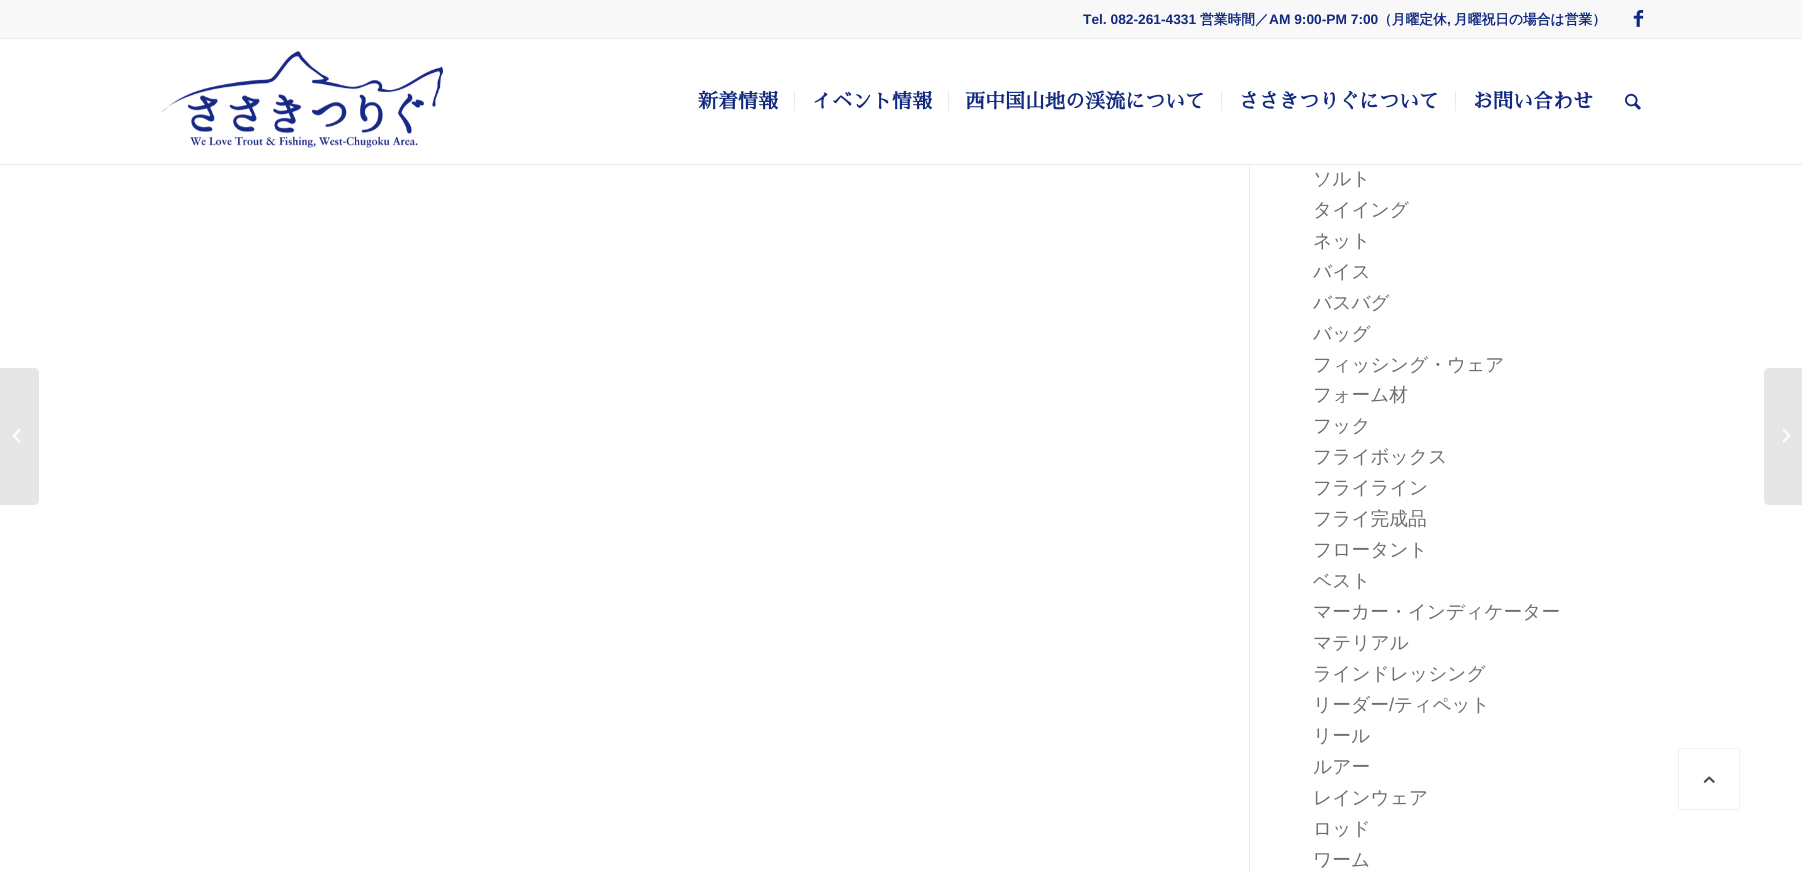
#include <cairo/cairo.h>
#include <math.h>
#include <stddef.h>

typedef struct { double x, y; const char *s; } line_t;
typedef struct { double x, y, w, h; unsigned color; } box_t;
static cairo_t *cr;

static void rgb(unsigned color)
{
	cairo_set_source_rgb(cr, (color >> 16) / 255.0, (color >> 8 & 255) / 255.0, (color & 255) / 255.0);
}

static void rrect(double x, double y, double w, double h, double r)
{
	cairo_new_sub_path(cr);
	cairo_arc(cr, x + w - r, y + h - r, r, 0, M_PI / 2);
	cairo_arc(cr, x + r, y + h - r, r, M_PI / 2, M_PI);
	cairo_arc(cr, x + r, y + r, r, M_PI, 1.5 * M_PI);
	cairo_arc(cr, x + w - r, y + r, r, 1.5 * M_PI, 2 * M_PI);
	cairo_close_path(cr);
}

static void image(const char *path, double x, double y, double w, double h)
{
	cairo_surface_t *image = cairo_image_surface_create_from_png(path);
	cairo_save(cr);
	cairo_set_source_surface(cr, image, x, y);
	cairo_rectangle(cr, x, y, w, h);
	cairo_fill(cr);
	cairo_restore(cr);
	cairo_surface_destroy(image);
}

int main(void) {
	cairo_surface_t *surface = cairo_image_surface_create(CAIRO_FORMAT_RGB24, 1802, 872);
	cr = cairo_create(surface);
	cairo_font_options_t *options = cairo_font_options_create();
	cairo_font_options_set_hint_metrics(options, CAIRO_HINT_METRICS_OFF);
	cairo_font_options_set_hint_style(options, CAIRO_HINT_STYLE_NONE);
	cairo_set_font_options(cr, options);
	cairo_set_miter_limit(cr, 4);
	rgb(0xffffff);
	cairo_paint(cr);
	rgb(0xf8f8f8);
	cairo_rectangle(cr, 0, 0, 1802, 38);
	cairo_fill(cr);
	rgb(0xebebeb);
	cairo_rectangle(cr, 0, 38, 1802, 1);
	cairo_fill(cr);
	image("img/1.png", 1633, 10, 11, 17);
	cairo_rectangle(cr, 0, 164, 1802, 1);
	cairo_fill(cr);
	image("img/2.png", 145, 39, 315, 109);
	{
		static const box_t items[] = {
			{794, 91, 1, 20, 0xebebeb},
			{948, 91, 1, 20, 0xebebeb},
			{1221, 91, 1, 20, 0xebebeb},
			{1455, 91, 1, 20, 0xebebeb},
		};
		for (size_t i = 0; i < sizeof items / sizeof *items; i++) {
			rgb(items[i].color);
			cairo_rectangle(cr, items[i].x, items[i].y, items[i].w, items[i].h);
			cairo_fill(cr);
		}
	}
	image("img/3.png", 1625, 93, 16, 17);
	rgb(0xe6e6e6);
	cairo_new_path(cr);
	cairo_move_to(cr, 0, 368);
	cairo_line_to(cr, 34, 368);
	cairo_curve_to(cr, 37, 368, 39, 370, 39, 373);
	cairo_line_to(cr, 39, 500);
	cairo_curve_to(cr, 39, 503, 37, 505, 34, 505);
	cairo_line_to(cr, 0, 505);
	cairo_close_path(cr);
	cairo_fill(cr);
	image("img/4.png", 12, 429, 9, 14);
	rgb(0xebebeb);
	cairo_rectangle(cr, 1249, 165, 1, 707);
	cairo_fill(cr);
	rgb(0xe6e6e6);
	cairo_new_path(cr);
	cairo_move_to(cr, 1769, 368);
	cairo_line_to(cr, 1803, 368);
	cairo_line_to(cr, 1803, 505);
	cairo_line_to(cr, 1769, 505);
	cairo_curve_to(cr, 1766, 505, 1764, 503, 1764, 500);
	cairo_line_to(cr, 1764, 373);
	cairo_curve_to(cr, 1764, 370, 1766, 368, 1769, 368);
	cairo_close_path(cr);
	cairo_fill(cr);
	image("img/5.png", 1782, 429, 9, 14);
	rrect(1678.5, 748.5, 61, 61, 2);
	rgb(0xf1f1f1);
	cairo_set_line_width(cr, 1);
	cairo_stroke(cr);
	image("img/6.png", 1703, 776, 12, 7);
	cairo_select_font_face(cr, "Liberation Sans", CAIRO_FONT_SLANT_NORMAL, CAIRO_FONT_WEIGHT_BOLD);
	cairo_set_font_size(cr, 13.75);
	rgb(0x122a80);
	cairo_move_to(cr, 1083, 24);
	cairo_show_text(cr, "Tel. 082-261-4331");
	cairo_select_font_face(cr, "WenQuanYi Zen Hei", CAIRO_FONT_SLANT_NORMAL, CAIRO_FONT_WEIGHT_BOLD);
	cairo_move_to(cr, 1200, 24);
	cairo_show_text(cr, "営業時間／");
	cairo_select_font_face(cr, "Liberation Sans", CAIRO_FONT_SLANT_NORMAL, CAIRO_FONT_WEIGHT_BOLD);
	cairo_move_to(cr, 1269, 24);
	cairo_show_text(cr, "AM 9:00-PM 7:00");
	cairo_select_font_face(cr, "WenQuanYi Zen Hei", CAIRO_FONT_SLANT_NORMAL, CAIRO_FONT_WEIGHT_BOLD);
	cairo_move_to(cr, 1378, 24);
	cairo_show_text(cr, "（月曜定休");
	cairo_select_font_face(cr, "Liberation Sans", CAIRO_FONT_SLANT_NORMAL, CAIRO_FONT_WEIGHT_BOLD);
	cairo_move_to(cr, 1447, 24);
	cairo_show_text(cr, ",");
	cairo_select_font_face(cr, "WenQuanYi Zen Hei", CAIRO_FONT_SLANT_NORMAL, CAIRO_FONT_WEIGHT_BOLD);
	cairo_move_to(cr, 1454, 24);
	cairo_show_text(cr, "月曜祝日の場合は営業）");
	cairo_select_font_face(cr, "Sawarabi Mincho", CAIRO_FONT_SLANT_NORMAL, CAIRO_FONT_WEIGHT_BOLD);
	cairo_set_font_size(cr, 20);
	{
		static const line_t items[] = {
			{698, 108, "新着情報"},
			{812, 108, "イベント情報"},
			{965, 108, "西中国山地の渓流について"},
			{1239, 108, "ささきつりぐについて"},
			{1473, 108, "お問い合わせ"},
		};
		for (size_t i = 0; i < sizeof items / sizeof *items; i++) {
			cairo_move_to(cr, items[i].x, items[i].y);
			cairo_show_text(cr, items[i].s);
		}
	}
	cairo_select_font_face(cr, "WenQuanYi Zen Hei Medium", CAIRO_FONT_SLANT_NORMAL, CAIRO_FONT_WEIGHT_NORMAL);
	cairo_set_font_size(cr, 18.75);
	rgb(0x6e6e6e);
	{
		static const line_t items[] = {
			{1313, 185, "ソルト"},
			{1313, 216, "タイイング"},
			{1313, 247, "ネット"},
			{1313, 278, "バイス"},
			{1313, 309, "バスバグ"},
			{1313, 340, "バッグ"},
			{1313, 371, "フィッシング・ウェア"},
			{1313, 401, "フォーム材"},
			{1313, 432, "フック"},
			{1313, 463, "フライボックス"},
			{1313, 494, "フライライン"},
			{1313, 525, "フライ完成品"},
			{1313, 556, "フロータント"},
			{1313, 587, "ベスト"},
			{1313, 618, "マーカー・インディケーター"},
			{1313, 649, "マテリアル"},
			{1313, 680, "ラインドレッシング"},
			{1313, 711, "リーダー"},
		};
		for (size_t i = 0; i < sizeof items / sizeof *items; i++) {
			cairo_move_to(cr, items[i].x, items[i].y);
			cairo_show_text(cr, items[i].s);
		}
	}
	cairo_select_font_face(cr, "Liberation Sans", CAIRO_FONT_SLANT_NORMAL, CAIRO_FONT_WEIGHT_NORMAL);
	cairo_move_to(cr, 1389, 711);
	cairo_show_text(cr, "/");
	cairo_select_font_face(cr, "WenQuanYi Zen Hei Medium", CAIRO_FONT_SLANT_NORMAL, CAIRO_FONT_WEIGHT_NORMAL);
	{
		static const line_t items[] = {
			{1394, 711, "ティペット"},
			{1313, 742, "リール"},
			{1313, 773, "ルアー"},
			{1313, 804, "レインウェア"},
			{1313, 835, "ロッド"},
			{1313, 866, "ワーム"},
		};
		for (size_t i = 0; i < sizeof items / sizeof *items; i++) {
			cairo_move_to(cr, items[i].x, items[i].y);
			cairo_show_text(cr, items[i].s);
		}
	}
	cairo_surface_write_to_png(surface, "page.png");
	cairo_font_options_destroy(options);
	cairo_destroy(cr);
	cairo_surface_destroy(surface);
	return 0;
}
